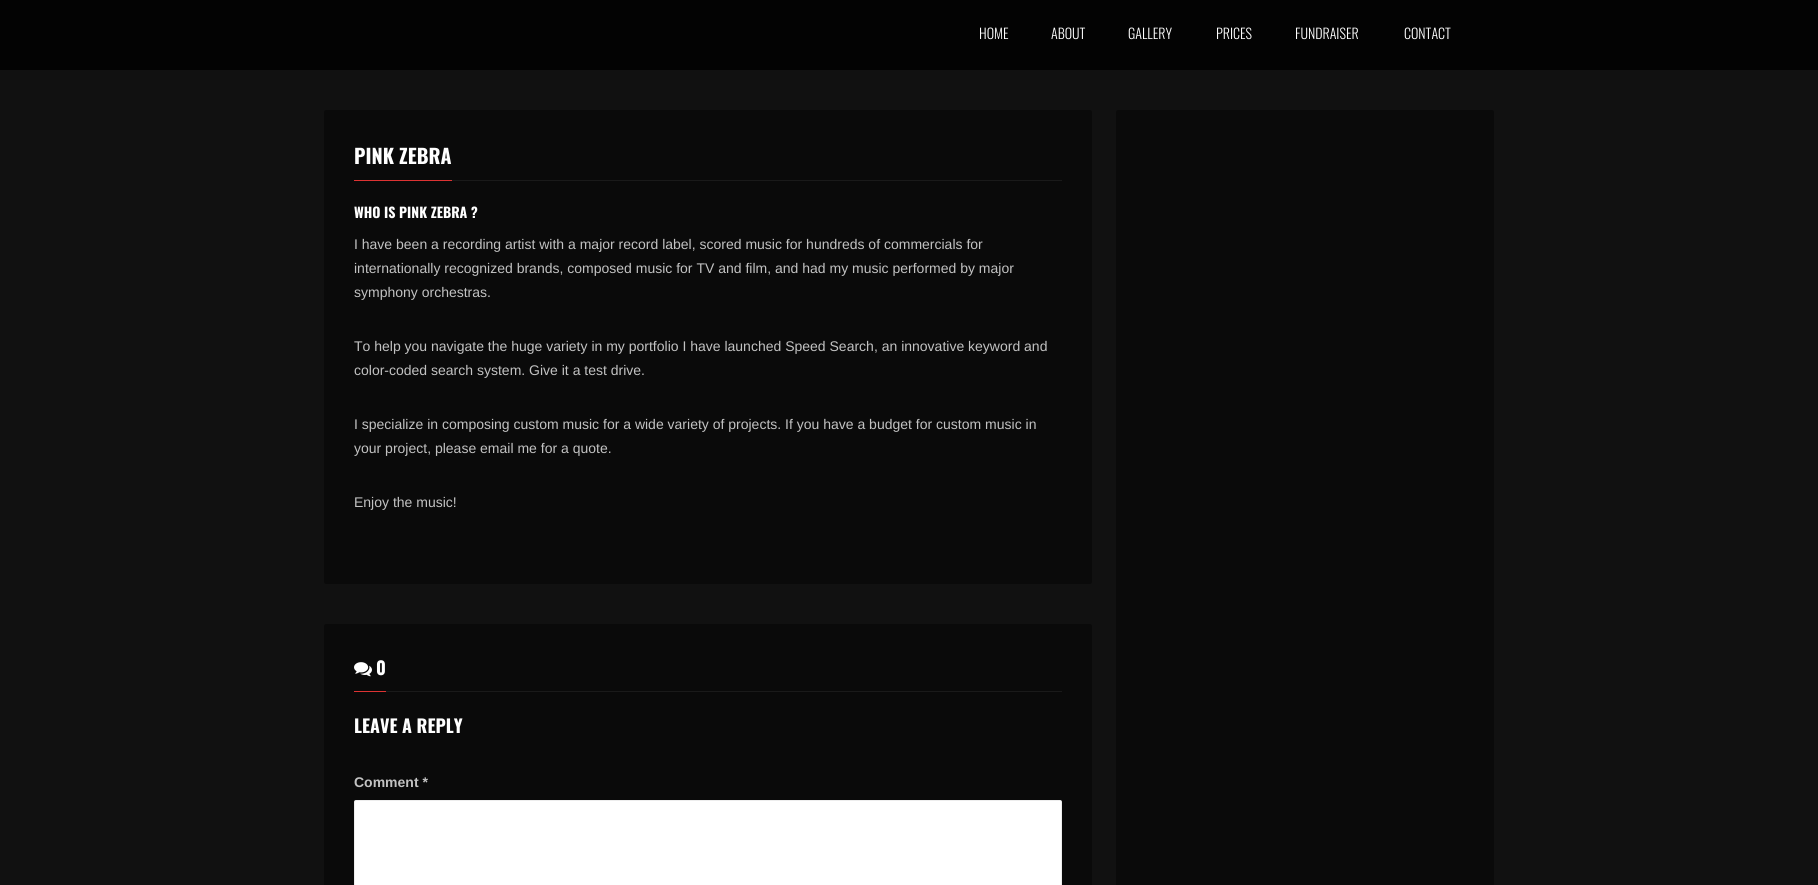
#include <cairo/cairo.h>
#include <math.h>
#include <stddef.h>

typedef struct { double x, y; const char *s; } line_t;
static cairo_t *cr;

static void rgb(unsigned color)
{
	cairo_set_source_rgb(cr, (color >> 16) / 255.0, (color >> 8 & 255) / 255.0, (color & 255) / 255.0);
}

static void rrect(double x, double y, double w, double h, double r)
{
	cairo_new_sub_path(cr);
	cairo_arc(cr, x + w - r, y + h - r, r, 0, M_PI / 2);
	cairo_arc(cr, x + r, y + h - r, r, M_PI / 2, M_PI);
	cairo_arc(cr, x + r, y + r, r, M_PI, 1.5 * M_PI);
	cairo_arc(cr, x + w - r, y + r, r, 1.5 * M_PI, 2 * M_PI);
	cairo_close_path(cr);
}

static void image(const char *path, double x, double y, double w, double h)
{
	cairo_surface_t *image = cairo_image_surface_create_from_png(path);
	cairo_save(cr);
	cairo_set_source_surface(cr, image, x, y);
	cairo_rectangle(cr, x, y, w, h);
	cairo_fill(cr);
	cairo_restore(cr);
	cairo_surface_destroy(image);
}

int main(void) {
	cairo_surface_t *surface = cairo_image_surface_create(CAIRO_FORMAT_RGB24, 1818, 885);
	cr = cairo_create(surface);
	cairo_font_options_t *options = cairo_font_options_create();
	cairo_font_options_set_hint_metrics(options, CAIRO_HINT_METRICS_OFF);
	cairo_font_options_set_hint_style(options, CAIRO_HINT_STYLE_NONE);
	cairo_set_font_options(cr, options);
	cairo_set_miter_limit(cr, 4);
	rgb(0x111111);
	cairo_paint(cr);
	rgb(0x030303);
	cairo_rectangle(cr, 0, 0, 1818, 70);
	cairo_fill(cr);
	rgb(0x0a0a0a);
	rrect(324, 110, 768, 474, 2);
	cairo_fill(cr);
	rgb(0xdd3333);
	cairo_rectangle(cr, 354, 180, 98, 1);
	cairo_fill(cr);
	rgb(0x1a1a1a);
	cairo_rectangle(cr, 452, 180, 610, 1);
	cairo_fill(cr);
	rgb(0x0a0a0a);
	rrect(324, 624, 768, 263, 2);
	cairo_fill(cr);
	rgb(0xdd3333);
	cairo_rectangle(cr, 354, 691, 32, 1);
	cairo_fill(cr);
	image("img/1.png", 354, 662, 18, 15);
	rgb(0x1a1a1a);
	cairo_rectangle(cr, 386, 691, 676, 1);
	cairo_fill(cr);
	rgb(0xffffff);
	rrect(354, 800, 708, 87, 2);
	cairo_fill(cr);
	rrect(354.5, 800.5, 707, 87, 1.5);
	cairo_set_source_rgba(cr, 0.655, 0.655, 0.655, 0.2);
	cairo_set_line_width(cr, 1);
	cairo_stroke(cr);
	rgb(0x0a0a0a);
	rrect(1116, 110, 378, 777, 2);
	cairo_fill(cr);
	cairo_select_font_face(cr, "Oswald Light", CAIRO_FONT_SLANT_NORMAL, CAIRO_FONT_WEIGHT_NORMAL);
	cairo_set_font_size(cr, 14);
	rgb(0xffffff);
	{
		static const line_t items[] = {
			{979, 39, "HOME"},
			{1051, 39, "ABOUT"},
			{1128, 39, "GALLERY"},
			{1216, 39, "PRICES"},
			{1295, 39, "FUNDRAISER"},
			{1404, 39, "CONTACT"},
		};
		for (size_t i = 0; i < sizeof items / sizeof *items; i++) {
			cairo_move_to(cr, items[i].x, items[i].y);
			cairo_show_text(cr, items[i].s);
		}
	}
	cairo_select_font_face(cr, "Oswald", CAIRO_FONT_SLANT_NORMAL, CAIRO_FONT_WEIGHT_BOLD);
	cairo_set_font_size(cr, 20);
	cairo_move_to(cr, 354, 164);
	cairo_show_text(cr, "PINK ZEBRA");
	cairo_set_font_size(cr, 14);
	cairo_move_to(cr, 354, 218);
	cairo_show_text(cr, "WHO IS PINK ZEBRA ?");
	cairo_select_font_face(cr, "Liberation Sans", CAIRO_FONT_SLANT_NORMAL, CAIRO_FONT_WEIGHT_NORMAL);
	rgb(0xc2c2c2);
	{
		static const line_t items[] = {
			{354, 249, "I have been a recording artist with a major record label, scored music for hundreds of commercials for"},
			{354, 273, "internationally recognized brands, composed music for TV and film, and had my music performed by major"},
			{354, 297, "symphony orchestras."},
			{354, 351, "To help you navigate the huge variety in my portfolio I have launched Speed Search, an innovative keyword and"},
			{354, 375, "color-coded search system. Give it a test drive."},
			{354, 429, "I specialize in composing custom music for a wide variety of projects. If you have a budget for custom music in"},
			{354, 453, "your project, please email me for a quote."},
			{354, 507, "Enjoy the music!"},
		};
		for (size_t i = 0; i < sizeof items / sizeof *items; i++) {
			cairo_move_to(cr, items[i].x, items[i].y);
			cairo_show_text(cr, items[i].s);
		}
	}
	cairo_select_font_face(cr, "Oswald", CAIRO_FONT_SLANT_NORMAL, CAIRO_FONT_WEIGHT_BOLD);
	cairo_set_font_size(cr, 18);
	rgb(0xffffff);
	cairo_move_to(cr, 376, 675);
	cairo_show_text(cr, "0");
	cairo_move_to(cr, 354, 733);
	cairo_show_text(cr, "LEAVE A REPLY");
	cairo_select_font_face(cr, "Liberation Sans", CAIRO_FONT_SLANT_NORMAL, CAIRO_FONT_WEIGHT_BOLD);
	cairo_set_font_size(cr, 14);
	rgb(0xc2c2c2);
	cairo_move_to(cr, 354, 787);
	cairo_show_text(cr, "Comment *");
	cairo_surface_write_to_png(surface, "page.png");
	cairo_font_options_destroy(options);
	cairo_destroy(cr);
	cairo_surface_destroy(surface);
	return 0;
}
